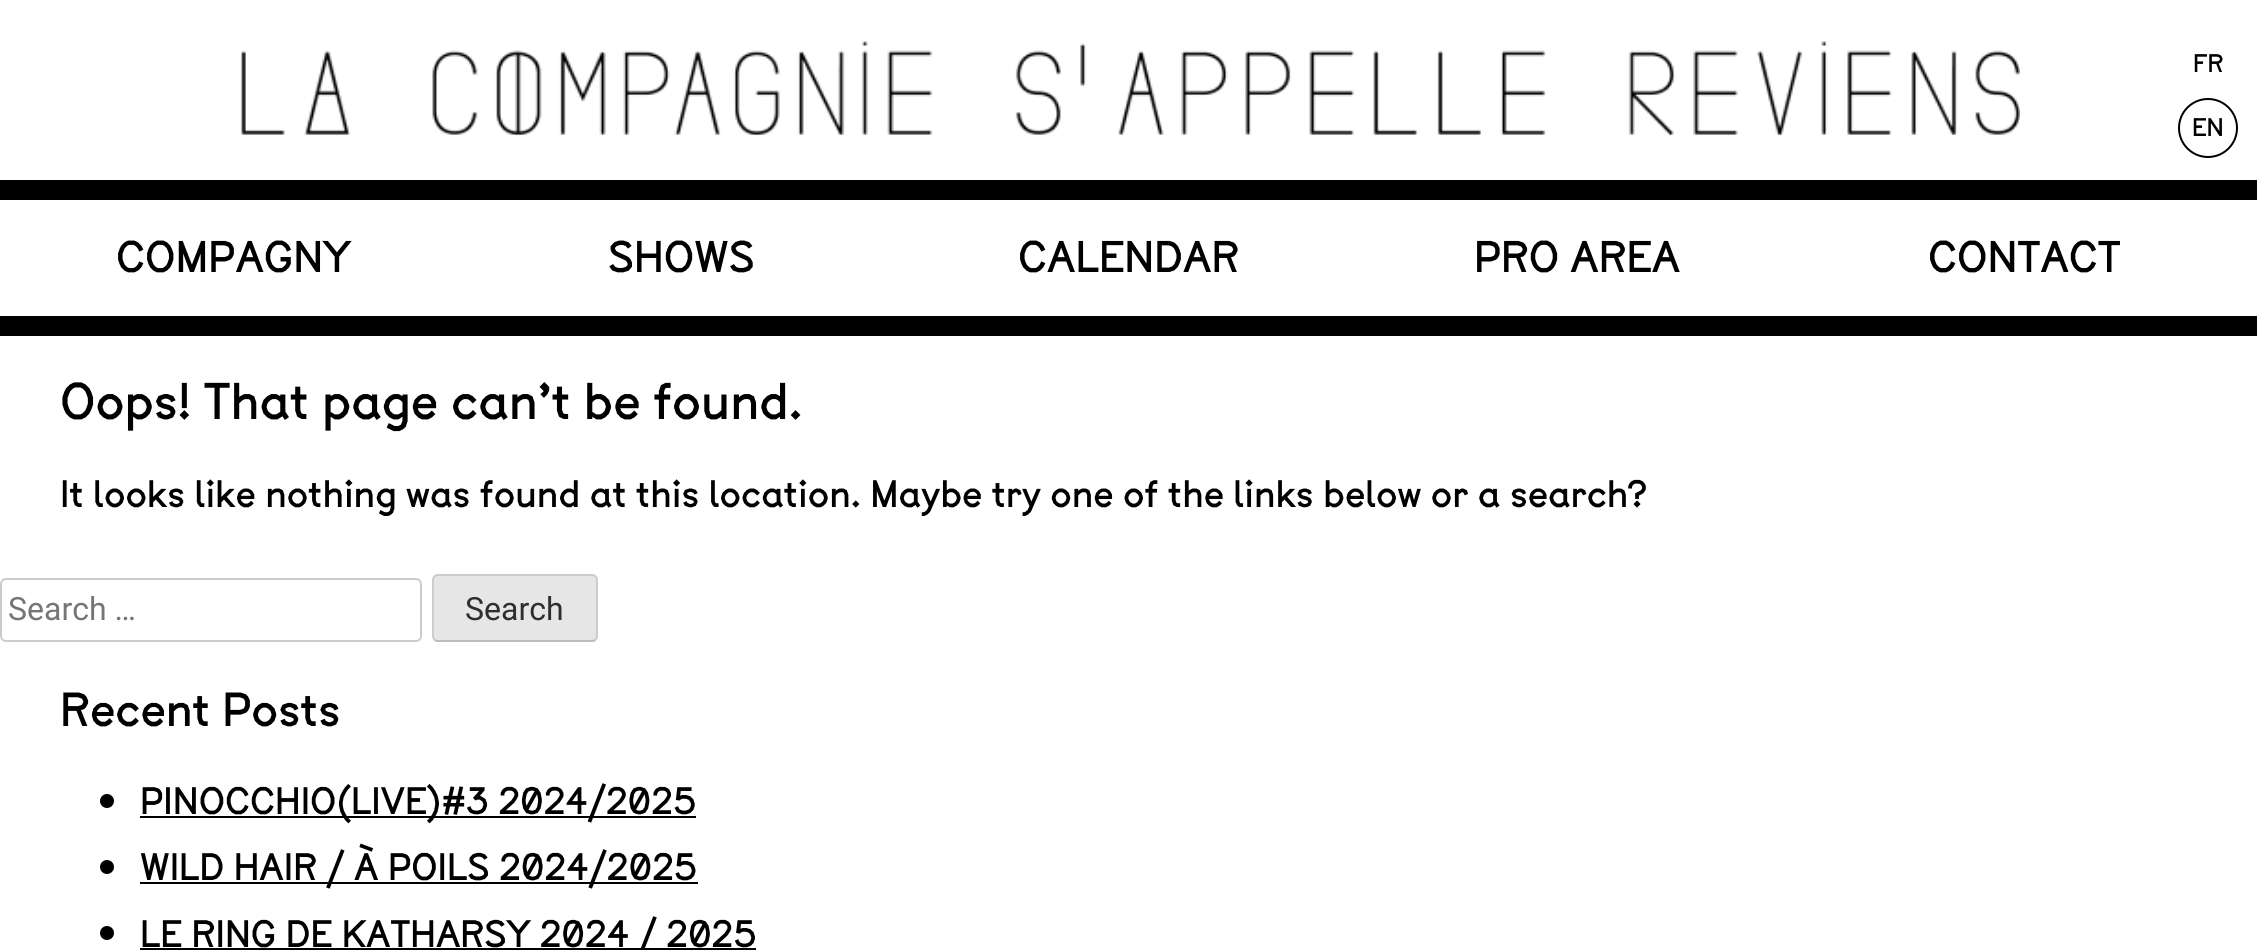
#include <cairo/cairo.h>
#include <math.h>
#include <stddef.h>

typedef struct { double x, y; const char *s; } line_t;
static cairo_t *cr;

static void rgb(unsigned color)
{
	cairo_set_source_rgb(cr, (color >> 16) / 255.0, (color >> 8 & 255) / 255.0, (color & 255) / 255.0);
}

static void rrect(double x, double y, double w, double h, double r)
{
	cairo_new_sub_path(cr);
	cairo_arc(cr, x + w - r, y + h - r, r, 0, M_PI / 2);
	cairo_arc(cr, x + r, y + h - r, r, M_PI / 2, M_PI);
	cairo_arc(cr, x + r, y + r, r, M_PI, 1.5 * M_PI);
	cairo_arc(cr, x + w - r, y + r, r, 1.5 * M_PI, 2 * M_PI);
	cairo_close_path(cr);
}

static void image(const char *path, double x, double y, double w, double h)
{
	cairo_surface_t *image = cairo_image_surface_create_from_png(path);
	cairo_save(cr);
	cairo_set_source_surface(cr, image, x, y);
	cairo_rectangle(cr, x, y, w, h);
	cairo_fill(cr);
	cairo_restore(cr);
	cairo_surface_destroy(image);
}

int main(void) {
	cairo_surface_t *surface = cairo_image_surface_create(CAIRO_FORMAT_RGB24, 2257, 950);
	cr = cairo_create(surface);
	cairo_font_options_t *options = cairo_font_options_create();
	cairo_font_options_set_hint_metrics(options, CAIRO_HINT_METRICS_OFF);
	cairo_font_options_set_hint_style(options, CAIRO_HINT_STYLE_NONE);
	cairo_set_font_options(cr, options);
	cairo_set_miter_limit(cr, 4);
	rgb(0xffffff);
	cairo_paint(cr);
	rgb(0x000000);
	cairo_rectangle(cr, 0, 316, 2257, 20);
	cairo_fill(cr);
	cairo_rectangle(cr, 0, 180, 2257, 20);
	cairo_fill(cr);
	image("img/1.png", 240, 41, 1780, 96);
	cairo_arc(cr, 2208, 128, 29, 0, 2 * M_PI);
	cairo_stroke(cr);
	rrect(1, 579, 420, 62, 5);
	rgb(0xcccccc);
	cairo_stroke(cr);
	rgb(0xe6e6e6);
	rrect(432, 574, 166, 68, 6);
	cairo_fill(cr);
	cairo_new_path(cr);
	cairo_move_to(cr, 595.5, 639.5);
	cairo_curve_to(cr, 594.5, 640.5, 593.5, 641, 592, 641);
	cairo_line_to(cr, 438, 641);
	cairo_curve_to(cr, 436.5, 641, 435.5, 640.5, 434.5, 639.5);
	rgb(0xbbbbbb);
	cairo_stroke(cr);
	cairo_new_path(cr);
	cairo_move_to(cr, 434.5, 639.5);
	cairo_curve_to(cr, 433.5, 638.5, 433, 637.5, 433, 636);
	cairo_line_to(cr, 433, 580);
	cairo_curve_to(cr, 433, 578.5, 433.5, 577.5, 434.5, 576.5);
	cairo_curve_to(cr, 435.5, 575.5, 436.5, 575, 438, 575);
	cairo_line_to(cr, 592, 575);
	cairo_curve_to(cr, 593.5, 575, 594.5, 575.5, 595.5, 576.5);
	cairo_curve_to(cr, 596.5, 577.5, 597, 578.5, 597, 580);
	cairo_line_to(cr, 597, 636);
	cairo_curve_to(cr, 597, 637.5, 596.5, 638.5, 595.5, 639.5);
	rgb(0xcccccc);
	cairo_stroke(cr);
	rgb(0x000000);
	cairo_arc(cr, 107, 801, 7, 0, 2 * M_PI);
	cairo_fill(cr);
	cairo_rectangle(cr, 140, 816, 556, 2);
	cairo_fill(cr);
	cairo_arc(cr, 107, 867, 7, 0, 2 * M_PI);
	cairo_fill(cr);
	cairo_rectangle(cr, 140, 882, 558, 2);
	cairo_fill(cr);
	cairo_arc(cr, 107, 933, 7, 0, 2 * M_PI);
	cairo_fill(cr);
	cairo_rectangle(cr, 140, 948, 616, 2);
	cairo_fill(cr);
	cairo_select_font_face(cr, "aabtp", CAIRO_FONT_SLANT_NORMAL, CAIRO_FONT_WEIGHT_NORMAL);
	cairo_set_font_size(cr, 24);
	cairo_move_to(cr, 2193, 72);
	cairo_show_text(cr, "FR");
	cairo_move_to(cr, 2192, 136);
	cairo_show_text(cr, "EN");
	cairo_set_font_size(cr, 41.75);
	{
		static const line_t items[] = {
			{116, 272, "COMPAGNY"},
			{608, 272, "SHOWS"},
			{1018, 272, "CALENDAR"},
			{1474, 272, "PRO AREA"},
			{1928, 272, "CONTACT"},
		};
		for (size_t i = 0; i < sizeof items / sizeof *items; i++) {
			cairo_move_to(cr, items[i].x, items[i].y);
			cairo_show_text(cr, items[i].s);
		}
	}
	cairo_set_font_size(cr, 48.6);
	cairo_move_to(cr, 60, 419);
	cairo_show_text(cr, "Oops! That page can’t be found.");
	cairo_set_font_size(cr, 36);
	cairo_move_to(cr, 60, 507);
	cairo_show_text(cr, "It looks like nothing was found at this location. Maybe try one of the links below or a search?");
	cairo_select_font_face(cr, "Roboto", CAIRO_FONT_SLANT_NORMAL, CAIRO_FONT_WEIGHT_NORMAL);
	cairo_set_font_size(cr, 32);
	rgb(0x757575);
	cairo_move_to(cr, 8, 620);
	cairo_show_text(cr, "Search …");
	rgb(0x2e2e2e);
	cairo_move_to(cr, 465, 620);
	cairo_show_text(cr, "Search");
	cairo_select_font_face(cr, "aabtp", CAIRO_FONT_SLANT_NORMAL, CAIRO_FONT_WEIGHT_NORMAL);
	cairo_set_font_size(cr, 45);
	rgb(0x000000);
	cairo_move_to(cr, 60, 726);
	cairo_show_text(cr, "Recent Posts");
	cairo_set_font_size(cr, 36);
	{
		static const line_t items[] = {
			{140, 814, "PINOCCHIO(LIVE)#3 2024/2025"},
			{140, 880, "WILD HAIR / À POILS 2024/2025"},
			{140, 947, "LE RING DE KATHARSY 2024 / 2025"},
		};
		for (size_t i = 0; i < sizeof items / sizeof *items; i++) {
			cairo_move_to(cr, items[i].x, items[i].y);
			cairo_show_text(cr, items[i].s);
		}
	}
	cairo_surface_write_to_png(surface, "page.png");
	cairo_font_options_destroy(options);
	cairo_destroy(cr);
	cairo_surface_destroy(surface);
	return 0;
}
